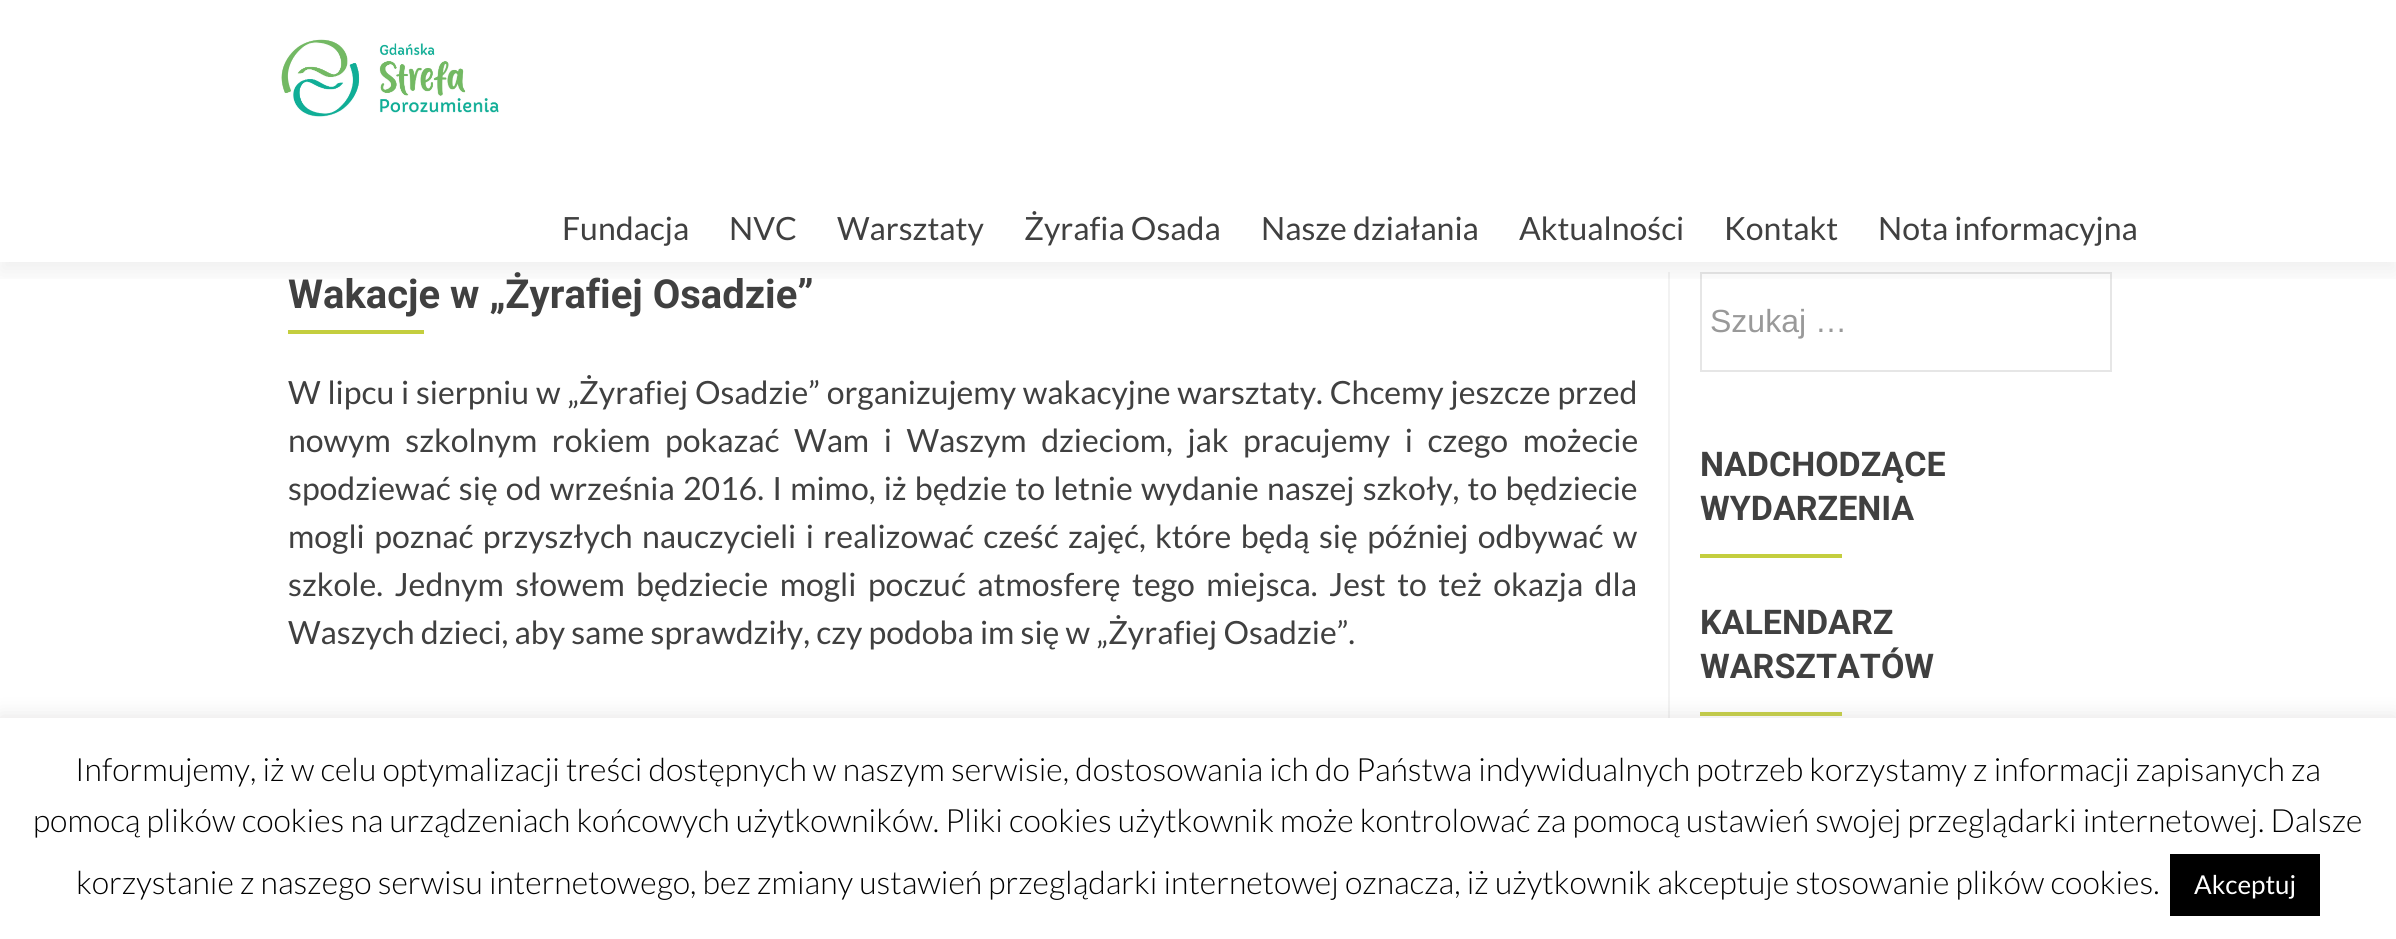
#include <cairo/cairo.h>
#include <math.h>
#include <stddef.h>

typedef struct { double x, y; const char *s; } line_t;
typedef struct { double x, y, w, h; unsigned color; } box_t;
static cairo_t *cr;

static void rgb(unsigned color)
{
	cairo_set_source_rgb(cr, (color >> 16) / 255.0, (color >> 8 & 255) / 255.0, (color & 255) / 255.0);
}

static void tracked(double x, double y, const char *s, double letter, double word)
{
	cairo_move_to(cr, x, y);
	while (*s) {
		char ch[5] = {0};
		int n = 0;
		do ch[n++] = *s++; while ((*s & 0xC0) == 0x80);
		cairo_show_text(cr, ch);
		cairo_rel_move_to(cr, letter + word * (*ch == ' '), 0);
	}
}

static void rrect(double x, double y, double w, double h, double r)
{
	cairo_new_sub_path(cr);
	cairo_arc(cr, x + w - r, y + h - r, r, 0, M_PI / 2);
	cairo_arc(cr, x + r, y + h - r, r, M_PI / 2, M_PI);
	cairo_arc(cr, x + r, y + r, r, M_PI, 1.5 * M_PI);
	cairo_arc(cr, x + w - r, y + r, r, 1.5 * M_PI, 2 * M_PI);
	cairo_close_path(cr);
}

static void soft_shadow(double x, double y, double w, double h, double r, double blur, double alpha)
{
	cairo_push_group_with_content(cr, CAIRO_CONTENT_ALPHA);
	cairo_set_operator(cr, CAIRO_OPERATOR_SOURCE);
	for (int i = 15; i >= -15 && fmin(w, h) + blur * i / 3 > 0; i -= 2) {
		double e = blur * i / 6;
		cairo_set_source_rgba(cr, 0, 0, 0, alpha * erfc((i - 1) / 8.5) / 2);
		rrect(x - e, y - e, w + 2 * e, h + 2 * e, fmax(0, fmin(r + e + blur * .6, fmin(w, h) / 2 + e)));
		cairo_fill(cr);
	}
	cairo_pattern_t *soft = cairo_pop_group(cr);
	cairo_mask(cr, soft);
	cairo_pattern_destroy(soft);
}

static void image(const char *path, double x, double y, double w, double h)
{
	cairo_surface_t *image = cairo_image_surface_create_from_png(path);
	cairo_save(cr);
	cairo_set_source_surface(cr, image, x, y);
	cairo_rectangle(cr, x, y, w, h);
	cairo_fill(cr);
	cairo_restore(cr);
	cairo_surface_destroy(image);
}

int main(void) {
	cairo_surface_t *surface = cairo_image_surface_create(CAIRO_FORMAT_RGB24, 2396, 939);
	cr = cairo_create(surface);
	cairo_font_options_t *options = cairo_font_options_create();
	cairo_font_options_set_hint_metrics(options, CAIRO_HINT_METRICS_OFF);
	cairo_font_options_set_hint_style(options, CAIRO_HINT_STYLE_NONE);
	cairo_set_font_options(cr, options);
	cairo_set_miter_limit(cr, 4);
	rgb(0xffffff);
	cairo_paint(cr);
	rgb(0xf2f2f2);
	cairo_rectangle(cr, 1668, 272, 2, 446);
	cairo_fill(cr);
	cairo_rectangle(cr, 1701, 273, 410, 98);
	rgb(0xe6e6e6);
	cairo_stroke(cr);
	cairo_save(cr);
	cairo_rectangle(cr, 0, 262, 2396, 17);
	cairo_clip(cr);
	rgb(0x323232);
	soft_shadow(0, 10, 2396, 262, 0, 11, 0.08);
	cairo_restore(cr);
	image("img/1.png", 281, 39, 218, 78);
	{
		static const box_t items[] = {
			{288, 330, 136, 4, 0xc4ce3e},
			{1700, 554, 142, 4, 0xc4ce3e},
			{1700, 712, 142, 4, 0xc4ce3e},
		};
		for (size_t i = 0; i < sizeof items / sizeof *items; i++) {
			rgb(items[i].color);
			cairo_rectangle(cr, items[i].x, items[i].y, items[i].w, items[i].h);
			cairo_fill(cr);
		}
	}
	rgb(0xacabab);
	soft_shadow(0, 716, 2396, 222, 0, 10, 0.3);
	rgb(0xffffff);
	cairo_rectangle(cr, 0, 718, 2396, 221);
	cairo_fill(cr);
	rgb(0x000000);
	cairo_rectangle(cr, 2170, 854, 150, 62);
	cairo_fill(cr);
	cairo_select_font_face(cr, "Lato", CAIRO_FONT_SLANT_NORMAL, CAIRO_FONT_WEIGHT_NORMAL);
	cairo_set_font_size(cr, 32);
	rgb(0x404040);
	{
		static const line_t items[] = {
			{562, 240, "Fundacja"},
			{729, 240, "NVC"},
			{837, 240, "Warsztaty"},
			{1024, 240, "Żyrafia Osada"},
			{1261, 240, "Nasze działania"},
			{1519, 240, "Aktualności"},
			{1724, 240, "Kontakt"},
			{1878, 240, "Nota informacyjna"},
		};
		for (size_t i = 0; i < sizeof items / sizeof *items; i++) {
			cairo_move_to(cr, items[i].x, items[i].y);
			cairo_show_text(cr, items[i].s);
		}
	}
	cairo_select_font_face(cr, "Roboto", CAIRO_FONT_SLANT_NORMAL, CAIRO_FONT_WEIGHT_BOLD);
	cairo_set_font_size(cr, 40);
	cairo_move_to(cr, 288, 308);
	cairo_show_text(cr, "Wakacje w „Żyrafiej Osadzie”");
	cairo_select_font_face(cr, "Lato", CAIRO_FONT_SLANT_NORMAL, CAIRO_FONT_WEIGHT_NORMAL);
	cairo_set_font_size(cr, 32);
	tracked(288, 404, "W lipcu i sierpniu w „Żyrafiej Osadzie” organizujemy wakacyjne warsztaty. Chcemy jeszcze przed", 0, 0.6);
	tracked(288, 452, "nowym szkolnym rokiem pokazać Wam i Waszym dzieciom, jak pracujemy i czego możecie", 0, 8.4);
	tracked(288, 500, "spodziewać się od września 2016. I mimo, iż będzie to letnie wydanie naszej szkoły, to będziecie", 0, 2);
	tracked(288, 548, "mogli poznać przyszłych nauczycieli i realizować cześć zajęć, które będą się później odbywać w", 0, 3.25);
	tracked(288, 596, "szkole. Jednym słowem będziecie mogli poczuć atmosferę tego miejsca. Jest to też okazja dla", 0, 5.25);
	cairo_move_to(cr, 288, 644);
	cairo_show_text(cr, "Waszych dzieci, aby same sprawdziły, czy podoba im się w „Żyrafiej Osadzie”.");
	cairo_select_font_face(cr, "Liberation Sans", CAIRO_FONT_SLANT_NORMAL, CAIRO_FONT_WEIGHT_NORMAL);
	rgb(0x999999);
	cairo_move_to(cr, 1710, 332);
	cairo_show_text(cr, "Szukaj …");
	cairo_select_font_face(cr, "Roboto", CAIRO_FONT_SLANT_NORMAL, CAIRO_FONT_WEIGHT_BOLD);
	cairo_set_font_size(cr, 34);
	rgb(0x404040);
	{
		static const line_t items[] = {
			{1700, 476, "NADCHODZĄCE"},
			{1700, 520, "WYDARZENIA"},
			{1700, 634, "KALENDARZ"},
			{1700, 678, "WARSZTATÓW"},
		};
		for (size_t i = 0; i < sizeof items / sizeof *items; i++) {
			cairo_move_to(cr, items[i].x, items[i].y);
			cairo_show_text(cr, items[i].s);
		}
	}
	cairo_select_font_face(cr, "Lato Light", CAIRO_FONT_SLANT_NORMAL, CAIRO_FONT_WEIGHT_NORMAL);
	cairo_set_font_size(cr, 32);
	rgb(0x000000);
	{
		static const line_t items[] = {
			{75, 781, "Informujemy, iż w celu optymalizacji treści dostępnych w naszym serwisie, dostosowania ich do Państwa indywidualnych potrzeb korzystamy z informacji zapisanych za"},
			{33, 832, "pomocą plików cookies na urządzeniach końcowych użytkowników. Pliki cookies użytkownik może kontrolować za pomocą ustawień swojej przeglądarki internetowej. Dalsze"},
			{76, 894, "korzystanie z naszego serwisu internetowego, bez zmiany ustawień przeglądarki internetowej oznacza, iż użytkownik akceptuje stosowanie plików cookies."},
		};
		for (size_t i = 0; i < sizeof items / sizeof *items; i++) {
			cairo_move_to(cr, items[i].x, items[i].y);
			cairo_show_text(cr, items[i].s);
		}
	}
	cairo_select_font_face(cr, "Lato", CAIRO_FONT_SLANT_NORMAL, CAIRO_FONT_WEIGHT_NORMAL);
	cairo_set_font_size(cr, 26);
	rgb(0xffffff);
	cairo_move_to(cr, 2194, 894);
	cairo_show_text(cr, "Akceptuj");
	cairo_surface_write_to_png(surface, "page.png");
	cairo_font_options_destroy(options);
	cairo_destroy(cr);
	cairo_surface_destroy(surface);
	return 0;
}
